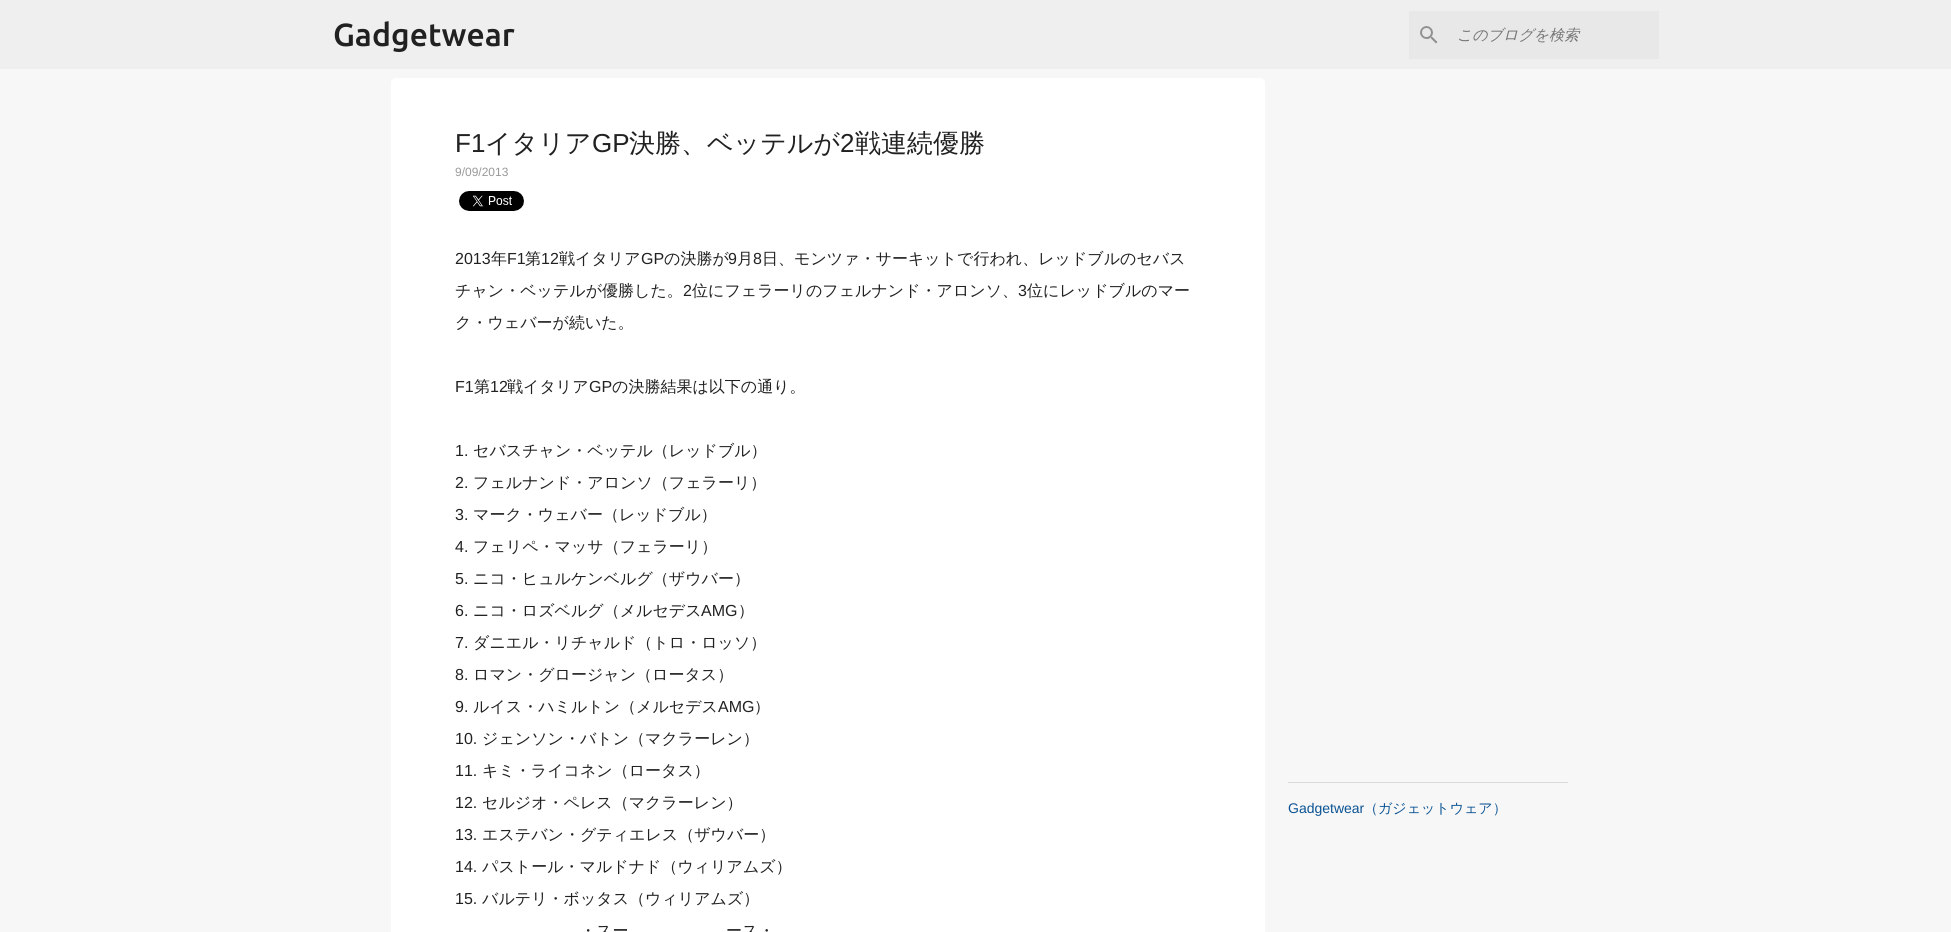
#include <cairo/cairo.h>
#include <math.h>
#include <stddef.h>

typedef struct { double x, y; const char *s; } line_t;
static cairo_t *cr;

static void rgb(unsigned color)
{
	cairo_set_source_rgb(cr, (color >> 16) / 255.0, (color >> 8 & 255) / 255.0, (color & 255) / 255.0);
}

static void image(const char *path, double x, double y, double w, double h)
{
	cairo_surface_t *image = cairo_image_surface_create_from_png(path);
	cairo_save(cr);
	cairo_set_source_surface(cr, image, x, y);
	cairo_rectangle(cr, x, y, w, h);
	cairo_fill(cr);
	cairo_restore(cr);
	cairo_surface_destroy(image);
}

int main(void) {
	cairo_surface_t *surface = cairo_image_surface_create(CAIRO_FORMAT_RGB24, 1951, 932);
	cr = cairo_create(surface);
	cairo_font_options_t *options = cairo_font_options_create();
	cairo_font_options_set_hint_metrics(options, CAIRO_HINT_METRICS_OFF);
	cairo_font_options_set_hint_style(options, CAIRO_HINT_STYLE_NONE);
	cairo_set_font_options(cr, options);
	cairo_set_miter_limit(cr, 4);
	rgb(0xf7f7f7);
	cairo_paint(cr);
	rgb(0xefefef);
	cairo_rectangle(cr, 0, 0, 1951, 69);
	cairo_fill(cr);
	rgb(0xe8e8e8);
	cairo_rectangle(cr, 1409, 11, 250, 48);
	cairo_fill(cr);
	image("img/1.png", 1420, 26, 18, 18);
	rgb(0xffffff);
	cairo_new_path(cr);
	cairo_move_to(cr, 396, 78);
	cairo_line_to(cr, 1260, 78);
	cairo_curve_to(cr, 1263, 78, 1265, 80, 1265, 83);
	cairo_line_to(cr, 1265, 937);
	cairo_line_to(cr, 391, 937);
	cairo_line_to(cr, 391, 83);
	cairo_curve_to(cr, 391, 80, 393, 78, 396, 78);
	cairo_close_path(cr);
	cairo_fill(cr);
	image("img/2.png", 459, 191, 65, 20);
	rgb(0xd9d9d9);
	cairo_rectangle(cr, 1288, 782, 280, 1);
	cairo_fill(cr);
	cairo_select_font_face(cr, "Ubuntu Medium", CAIRO_FONT_SLANT_NORMAL, CAIRO_FONT_WEIGHT_NORMAL);
	cairo_set_font_size(cr, 32);
	rgb(0x212121);
	cairo_move_to(cr, 333, 46);
	cairo_show_text(cr, "Gadgetwear");
	cairo_select_font_face(cr, "WenQuanYi Zen Hei Medium", CAIRO_FONT_SLANT_ITALIC, CAIRO_FONT_WEIGHT_NORMAL);
	cairo_set_font_size(cr, 15);
	rgb(0x757575);
	cairo_move_to(cr, 1457, 40);
	cairo_show_text(cr, "このブログを検索");
	cairo_select_font_face(cr, "Liberation Sans", CAIRO_FONT_SLANT_NORMAL, CAIRO_FONT_WEIGHT_NORMAL);
	cairo_set_font_size(cr, 26);
	rgb(0x212121);
	cairo_move_to(cr, 455, 152);
	cairo_show_text(cr, "F1");
	cairo_select_font_face(cr, "WenQuanYi Zen Hei Medium", CAIRO_FONT_SLANT_NORMAL, CAIRO_FONT_WEIGHT_NORMAL);
	cairo_move_to(cr, 485, 152);
	cairo_show_text(cr, "イタリア");
	cairo_select_font_face(cr, "Liberation Sans", CAIRO_FONT_SLANT_NORMAL, CAIRO_FONT_WEIGHT_NORMAL);
	cairo_move_to(cr, 592, 152);
	cairo_show_text(cr, "GP");
	cairo_select_font_face(cr, "WenQuanYi Zen Hei Medium", CAIRO_FONT_SLANT_NORMAL, CAIRO_FONT_WEIGHT_NORMAL);
	cairo_move_to(cr, 629, 152);
	cairo_show_text(cr, "決勝、ベッテルが");
	cairo_select_font_face(cr, "Liberation Sans", CAIRO_FONT_SLANT_NORMAL, CAIRO_FONT_WEIGHT_NORMAL);
	cairo_move_to(cr, 840, 152);
	cairo_show_text(cr, "2");
	cairo_select_font_face(cr, "WenQuanYi Zen Hei Medium", CAIRO_FONT_SLANT_NORMAL, CAIRO_FONT_WEIGHT_NORMAL);
	cairo_move_to(cr, 855, 152);
	cairo_show_text(cr, "戦連続優勝");
	cairo_select_font_face(cr, "Liberation Sans", CAIRO_FONT_SLANT_NORMAL, CAIRO_FONT_WEIGHT_NORMAL);
	cairo_set_font_size(cr, 12);
	rgb(0x999999);
	cairo_move_to(cr, 455, 176);
	cairo_show_text(cr, "9/09/2013");
	cairo_set_font_size(cr, 16);
	rgb(0x212121);
	cairo_move_to(cr, 455, 264);
	cairo_show_text(cr, "2013");
	cairo_select_font_face(cr, "WenQuanYi Zen Hei Medium", CAIRO_FONT_SLANT_NORMAL, CAIRO_FONT_WEIGHT_NORMAL);
	cairo_move_to(cr, 491, 264);
	cairo_show_text(cr, "年");
	cairo_select_font_face(cr, "Liberation Sans", CAIRO_FONT_SLANT_NORMAL, CAIRO_FONT_WEIGHT_NORMAL);
	cairo_move_to(cr, 507, 264);
	cairo_show_text(cr, "F1");
	cairo_select_font_face(cr, "WenQuanYi Zen Hei Medium", CAIRO_FONT_SLANT_NORMAL, CAIRO_FONT_WEIGHT_NORMAL);
	cairo_move_to(cr, 525, 264);
	cairo_show_text(cr, "第");
	cairo_select_font_face(cr, "Liberation Sans", CAIRO_FONT_SLANT_NORMAL, CAIRO_FONT_WEIGHT_NORMAL);
	cairo_move_to(cr, 541, 264);
	cairo_show_text(cr, "12");
	cairo_select_font_face(cr, "WenQuanYi Zen Hei Medium", CAIRO_FONT_SLANT_NORMAL, CAIRO_FONT_WEIGHT_NORMAL);
	cairo_move_to(cr, 559, 264);
	cairo_show_text(cr, "戦イタリア");
	cairo_select_font_face(cr, "Liberation Sans", CAIRO_FONT_SLANT_NORMAL, CAIRO_FONT_WEIGHT_NORMAL);
	cairo_move_to(cr, 641, 264);
	cairo_show_text(cr, "GP");
	cairo_select_font_face(cr, "WenQuanYi Zen Hei Medium", CAIRO_FONT_SLANT_NORMAL, CAIRO_FONT_WEIGHT_NORMAL);
	cairo_move_to(cr, 664, 264);
	cairo_show_text(cr, "の決勝が");
	cairo_select_font_face(cr, "Liberation Sans", CAIRO_FONT_SLANT_NORMAL, CAIRO_FONT_WEIGHT_NORMAL);
	cairo_move_to(cr, 728, 264);
	cairo_show_text(cr, "9");
	cairo_select_font_face(cr, "WenQuanYi Zen Hei Medium", CAIRO_FONT_SLANT_NORMAL, CAIRO_FONT_WEIGHT_NORMAL);
	cairo_move_to(cr, 737, 264);
	cairo_show_text(cr, "月");
	cairo_select_font_face(cr, "Liberation Sans", CAIRO_FONT_SLANT_NORMAL, CAIRO_FONT_WEIGHT_NORMAL);
	cairo_move_to(cr, 753, 264);
	cairo_show_text(cr, "8");
	cairo_select_font_face(cr, "WenQuanYi Zen Hei Medium", CAIRO_FONT_SLANT_NORMAL, CAIRO_FONT_WEIGHT_NORMAL);
	cairo_move_to(cr, 762, 264);
	cairo_show_text(cr, "日、モンツァ・サーキットで行われ、レッドブルのセバス");
	cairo_move_to(cr, 455, 296);
	cairo_show_text(cr, "チャン・ベッテルが優勝した。");
	cairo_select_font_face(cr, "Liberation Sans", CAIRO_FONT_SLANT_NORMAL, CAIRO_FONT_WEIGHT_NORMAL);
	cairo_move_to(cr, 683, 296);
	cairo_show_text(cr, "2");
	cairo_select_font_face(cr, "WenQuanYi Zen Hei Medium", CAIRO_FONT_SLANT_NORMAL, CAIRO_FONT_WEIGHT_NORMAL);
	cairo_move_to(cr, 692, 296);
	cairo_show_text(cr, "位にフェラーリのフェルナンド・アロンソ、");
	cairo_select_font_face(cr, "Liberation Sans", CAIRO_FONT_SLANT_NORMAL, CAIRO_FONT_WEIGHT_NORMAL);
	cairo_move_to(cr, 1018, 296);
	cairo_show_text(cr, "3");
	cairo_select_font_face(cr, "WenQuanYi Zen Hei Medium", CAIRO_FONT_SLANT_NORMAL, CAIRO_FONT_WEIGHT_NORMAL);
	cairo_move_to(cr, 1027, 296);
	cairo_show_text(cr, "位にレッドブルのマー");
	cairo_move_to(cr, 455, 328);
	cairo_show_text(cr, "ク・ウェバーが続いた。");
	cairo_select_font_face(cr, "Liberation Sans", CAIRO_FONT_SLANT_NORMAL, CAIRO_FONT_WEIGHT_NORMAL);
	cairo_move_to(cr, 455, 392);
	cairo_show_text(cr, "F1");
	cairo_select_font_face(cr, "WenQuanYi Zen Hei Medium", CAIRO_FONT_SLANT_NORMAL, CAIRO_FONT_WEIGHT_NORMAL);
	cairo_move_to(cr, 474, 392);
	cairo_show_text(cr, "第");
	cairo_select_font_face(cr, "Liberation Sans", CAIRO_FONT_SLANT_NORMAL, CAIRO_FONT_WEIGHT_NORMAL);
	cairo_move_to(cr, 490, 392);
	cairo_show_text(cr, "12");
	cairo_select_font_face(cr, "WenQuanYi Zen Hei Medium", CAIRO_FONT_SLANT_NORMAL, CAIRO_FONT_WEIGHT_NORMAL);
	cairo_move_to(cr, 507, 392);
	cairo_show_text(cr, "戦イタリア");
	cairo_select_font_face(cr, "Liberation Sans", CAIRO_FONT_SLANT_NORMAL, CAIRO_FONT_WEIGHT_NORMAL);
	cairo_move_to(cr, 589, 392);
	cairo_show_text(cr, "GP");
	cairo_select_font_face(cr, "WenQuanYi Zen Hei Medium", CAIRO_FONT_SLANT_NORMAL, CAIRO_FONT_WEIGHT_NORMAL);
	cairo_move_to(cr, 612, 392);
	cairo_show_text(cr, "の決勝結果は以下の通り。");
	cairo_select_font_face(cr, "Liberation Sans", CAIRO_FONT_SLANT_NORMAL, CAIRO_FONT_WEIGHT_NORMAL);
	cairo_move_to(cr, 455, 456);
	cairo_show_text(cr, "1.");
	cairo_select_font_face(cr, "WenQuanYi Zen Hei Medium", CAIRO_FONT_SLANT_NORMAL, CAIRO_FONT_WEIGHT_NORMAL);
	cairo_move_to(cr, 473, 456);
	cairo_show_text(cr, "セバスチャン・ベッテル（レッドブル）");
	cairo_select_font_face(cr, "Liberation Sans", CAIRO_FONT_SLANT_NORMAL, CAIRO_FONT_WEIGHT_NORMAL);
	cairo_move_to(cr, 455, 488);
	cairo_show_text(cr, "2.");
	cairo_select_font_face(cr, "WenQuanYi Zen Hei Medium", CAIRO_FONT_SLANT_NORMAL, CAIRO_FONT_WEIGHT_NORMAL);
	cairo_move_to(cr, 473, 488);
	cairo_show_text(cr, "フェルナンド・アロンソ（フェラーリ）");
	cairo_select_font_face(cr, "Liberation Sans", CAIRO_FONT_SLANT_NORMAL, CAIRO_FONT_WEIGHT_NORMAL);
	cairo_move_to(cr, 455, 520);
	cairo_show_text(cr, "3.");
	cairo_select_font_face(cr, "WenQuanYi Zen Hei Medium", CAIRO_FONT_SLANT_NORMAL, CAIRO_FONT_WEIGHT_NORMAL);
	cairo_move_to(cr, 473, 520);
	cairo_show_text(cr, "マーク・ウェバー（レッドブル）");
	cairo_select_font_face(cr, "Liberation Sans", CAIRO_FONT_SLANT_NORMAL, CAIRO_FONT_WEIGHT_NORMAL);
	cairo_move_to(cr, 455, 552);
	cairo_show_text(cr, "4.");
	cairo_select_font_face(cr, "WenQuanYi Zen Hei Medium", CAIRO_FONT_SLANT_NORMAL, CAIRO_FONT_WEIGHT_NORMAL);
	cairo_move_to(cr, 473, 552);
	cairo_show_text(cr, "フェリペ・マッサ（フェラーリ）");
	cairo_select_font_face(cr, "Liberation Sans", CAIRO_FONT_SLANT_NORMAL, CAIRO_FONT_WEIGHT_NORMAL);
	cairo_move_to(cr, 455, 584);
	cairo_show_text(cr, "5.");
	cairo_select_font_face(cr, "WenQuanYi Zen Hei Medium", CAIRO_FONT_SLANT_NORMAL, CAIRO_FONT_WEIGHT_NORMAL);
	cairo_move_to(cr, 473, 584);
	cairo_show_text(cr, "ニコ・ヒュルケンベルグ（ザウバー）");
	cairo_select_font_face(cr, "Liberation Sans", CAIRO_FONT_SLANT_NORMAL, CAIRO_FONT_WEIGHT_NORMAL);
	cairo_move_to(cr, 455, 616);
	cairo_show_text(cr, "6.");
	cairo_select_font_face(cr, "WenQuanYi Zen Hei Medium", CAIRO_FONT_SLANT_NORMAL, CAIRO_FONT_WEIGHT_NORMAL);
	cairo_move_to(cr, 473, 616);
	cairo_show_text(cr, "ニコ・ロズベルグ（メルセデス");
	cairo_select_font_face(cr, "Liberation Sans", CAIRO_FONT_SLANT_NORMAL, CAIRO_FONT_WEIGHT_NORMAL);
	cairo_move_to(cr, 701, 616);
	cairo_show_text(cr, "AMG");
	cairo_select_font_face(cr, "WenQuanYi Zen Hei Medium", CAIRO_FONT_SLANT_NORMAL, CAIRO_FONT_WEIGHT_NORMAL);
	cairo_move_to(cr, 738, 616);
	cairo_show_text(cr, "）");
	cairo_select_font_face(cr, "Liberation Sans", CAIRO_FONT_SLANT_NORMAL, CAIRO_FONT_WEIGHT_NORMAL);
	cairo_move_to(cr, 455, 648);
	cairo_show_text(cr, "7.");
	cairo_select_font_face(cr, "WenQuanYi Zen Hei Medium", CAIRO_FONT_SLANT_NORMAL, CAIRO_FONT_WEIGHT_NORMAL);
	cairo_move_to(cr, 473, 648);
	cairo_show_text(cr, "ダニエル・リチャルド（トロ・ロッソ）");
	cairo_select_font_face(cr, "Liberation Sans", CAIRO_FONT_SLANT_NORMAL, CAIRO_FONT_WEIGHT_NORMAL);
	cairo_move_to(cr, 455, 680);
	cairo_show_text(cr, "8.");
	cairo_select_font_face(cr, "WenQuanYi Zen Hei Medium", CAIRO_FONT_SLANT_NORMAL, CAIRO_FONT_WEIGHT_NORMAL);
	cairo_move_to(cr, 473, 680);
	cairo_show_text(cr, "ロマン・グロージャン（ロータス）");
	cairo_select_font_face(cr, "Liberation Sans", CAIRO_FONT_SLANT_NORMAL, CAIRO_FONT_WEIGHT_NORMAL);
	cairo_move_to(cr, 455, 712);
	cairo_show_text(cr, "9.");
	cairo_select_font_face(cr, "WenQuanYi Zen Hei Medium", CAIRO_FONT_SLANT_NORMAL, CAIRO_FONT_WEIGHT_NORMAL);
	cairo_move_to(cr, 473, 712);
	cairo_show_text(cr, "ルイス・ハミルトン（メルセデス");
	cairo_select_font_face(cr, "Liberation Sans", CAIRO_FONT_SLANT_NORMAL, CAIRO_FONT_WEIGHT_NORMAL);
	cairo_move_to(cr, 718, 712);
	cairo_show_text(cr, "AMG");
	cairo_select_font_face(cr, "WenQuanYi Zen Hei Medium", CAIRO_FONT_SLANT_NORMAL, CAIRO_FONT_WEIGHT_NORMAL);
	cairo_move_to(cr, 754, 712);
	cairo_show_text(cr, "）");
	cairo_select_font_face(cr, "Liberation Sans", CAIRO_FONT_SLANT_NORMAL, CAIRO_FONT_WEIGHT_NORMAL);
	cairo_move_to(cr, 455, 744);
	cairo_show_text(cr, "10.");
	cairo_select_font_face(cr, "WenQuanYi Zen Hei Medium", CAIRO_FONT_SLANT_NORMAL, CAIRO_FONT_WEIGHT_NORMAL);
	cairo_move_to(cr, 482, 744);
	cairo_show_text(cr, "ジェンソン・バトン（マクラーレン）");
	cairo_select_font_face(cr, "Liberation Sans", CAIRO_FONT_SLANT_NORMAL, CAIRO_FONT_WEIGHT_NORMAL);
	cairo_move_to(cr, 455, 776);
	cairo_show_text(cr, "11.");
	cairo_select_font_face(cr, "WenQuanYi Zen Hei Medium", CAIRO_FONT_SLANT_NORMAL, CAIRO_FONT_WEIGHT_NORMAL);
	cairo_move_to(cr, 482, 776);
	cairo_show_text(cr, "キミ・ライコネン（ロータス）");
	cairo_select_font_face(cr, "Liberation Sans", CAIRO_FONT_SLANT_NORMAL, CAIRO_FONT_WEIGHT_NORMAL);
	cairo_move_to(cr, 455, 808);
	cairo_show_text(cr, "12.");
	cairo_select_font_face(cr, "WenQuanYi Zen Hei Medium", CAIRO_FONT_SLANT_NORMAL, CAIRO_FONT_WEIGHT_NORMAL);
	cairo_move_to(cr, 482, 808);
	cairo_show_text(cr, "セルジオ・ペレス（マクラーレン）");
	cairo_select_font_face(cr, "Liberation Sans", CAIRO_FONT_SLANT_NORMAL, CAIRO_FONT_WEIGHT_NORMAL);
	cairo_move_to(cr, 455, 840);
	cairo_show_text(cr, "13.");
	cairo_select_font_face(cr, "WenQuanYi Zen Hei Medium", CAIRO_FONT_SLANT_NORMAL, CAIRO_FONT_WEIGHT_NORMAL);
	cairo_move_to(cr, 482, 840);
	cairo_show_text(cr, "エステバン・グティエレス（ザウバー）");
	cairo_select_font_face(cr, "Liberation Sans", CAIRO_FONT_SLANT_NORMAL, CAIRO_FONT_WEIGHT_NORMAL);
	cairo_move_to(cr, 455, 872);
	cairo_show_text(cr, "14.");
	cairo_select_font_face(cr, "WenQuanYi Zen Hei Medium", CAIRO_FONT_SLANT_NORMAL, CAIRO_FONT_WEIGHT_NORMAL);
	cairo_move_to(cr, 482, 872);
	cairo_show_text(cr, "パストール・マルドナド（ウィリアムズ）");
	cairo_select_font_face(cr, "Liberation Sans", CAIRO_FONT_SLANT_NORMAL, CAIRO_FONT_WEIGHT_NORMAL);
	cairo_move_to(cr, 455, 904);
	cairo_show_text(cr, "15.");
	cairo_select_font_face(cr, "WenQuanYi Zen Hei Medium", CAIRO_FONT_SLANT_NORMAL, CAIRO_FONT_WEIGHT_NORMAL);
	{
		static const line_t items[] = {
			{482, 904, "バルテリ・ボッタス（ウィリアムズ）"},
			{580, 936, "・スー"},
			{726, 936, "ース・"},
		};
		for (size_t i = 0; i < sizeof items / sizeof *items; i++) {
			cairo_move_to(cr, items[i].x, items[i].y);
			cairo_show_text(cr, items[i].s);
		}
	}
	cairo_select_font_face(cr, "Liberation Sans", CAIRO_FONT_SLANT_NORMAL, CAIRO_FONT_WEIGHT_NORMAL);
	cairo_set_font_size(cr, 14);
	rgb(0x0b5394);
	cairo_move_to(cr, 1288, 813);
	cairo_show_text(cr, "Gadgetwear");
	cairo_select_font_face(cr, "WenQuanYi Zen Hei Medium", CAIRO_FONT_SLANT_NORMAL, CAIRO_FONT_WEIGHT_NORMAL);
	cairo_move_to(cr, 1364, 813);
	cairo_show_text(cr, "（ガジェットウェア）");
	cairo_surface_write_to_png(surface, "page.png");
	cairo_font_options_destroy(options);
	cairo_destroy(cr);
	cairo_surface_destroy(surface);
	return 0;
}
